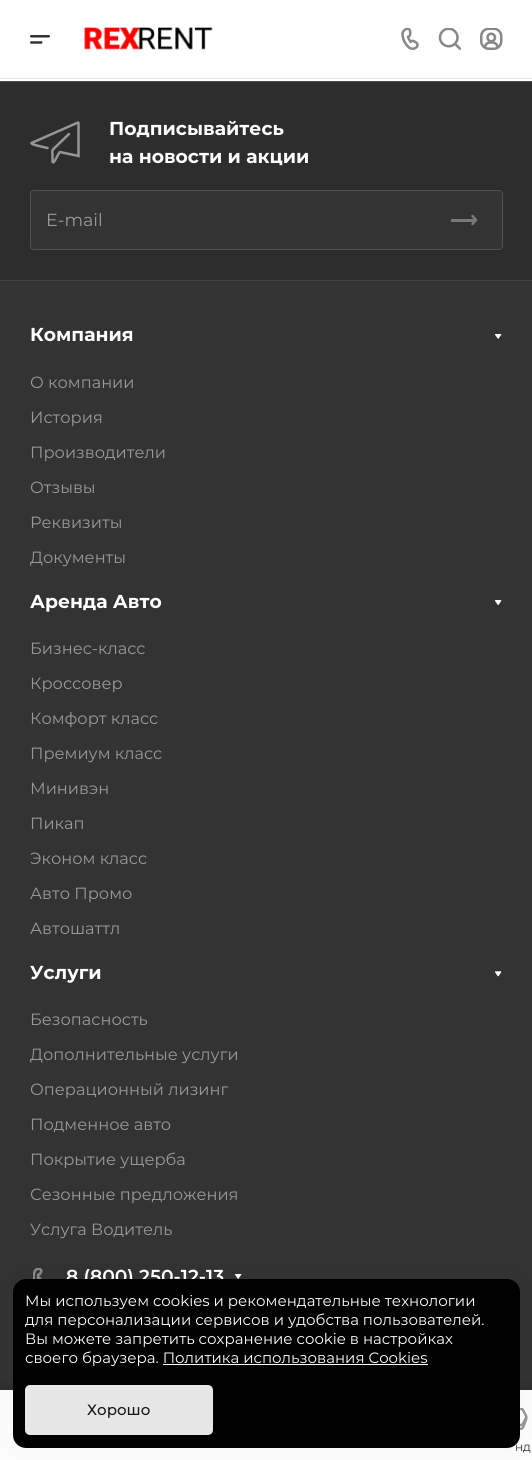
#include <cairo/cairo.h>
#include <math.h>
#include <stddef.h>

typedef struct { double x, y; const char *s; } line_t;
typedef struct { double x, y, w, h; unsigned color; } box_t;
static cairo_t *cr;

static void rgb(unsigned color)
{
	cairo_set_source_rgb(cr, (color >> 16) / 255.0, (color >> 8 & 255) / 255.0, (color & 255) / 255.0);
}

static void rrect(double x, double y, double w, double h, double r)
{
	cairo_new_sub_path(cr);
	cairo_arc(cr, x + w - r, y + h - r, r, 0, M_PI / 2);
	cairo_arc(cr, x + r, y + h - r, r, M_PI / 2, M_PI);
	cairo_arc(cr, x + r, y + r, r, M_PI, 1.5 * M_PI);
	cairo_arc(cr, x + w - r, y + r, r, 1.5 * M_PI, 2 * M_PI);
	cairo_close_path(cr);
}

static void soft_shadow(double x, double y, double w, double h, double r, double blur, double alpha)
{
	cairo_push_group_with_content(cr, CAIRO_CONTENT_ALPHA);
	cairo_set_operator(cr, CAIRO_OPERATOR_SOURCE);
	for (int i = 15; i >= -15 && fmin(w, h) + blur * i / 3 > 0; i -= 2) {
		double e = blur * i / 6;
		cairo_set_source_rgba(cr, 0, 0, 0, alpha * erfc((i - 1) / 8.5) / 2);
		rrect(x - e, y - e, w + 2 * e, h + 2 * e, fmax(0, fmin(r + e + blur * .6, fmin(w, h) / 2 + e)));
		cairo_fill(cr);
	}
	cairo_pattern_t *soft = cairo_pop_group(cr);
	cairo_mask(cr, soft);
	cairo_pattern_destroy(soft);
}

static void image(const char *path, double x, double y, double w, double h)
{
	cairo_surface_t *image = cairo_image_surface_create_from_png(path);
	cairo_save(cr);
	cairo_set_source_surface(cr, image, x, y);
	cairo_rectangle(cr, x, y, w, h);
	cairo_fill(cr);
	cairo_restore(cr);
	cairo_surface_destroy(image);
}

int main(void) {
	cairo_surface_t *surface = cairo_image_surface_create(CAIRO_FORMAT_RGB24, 532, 1460);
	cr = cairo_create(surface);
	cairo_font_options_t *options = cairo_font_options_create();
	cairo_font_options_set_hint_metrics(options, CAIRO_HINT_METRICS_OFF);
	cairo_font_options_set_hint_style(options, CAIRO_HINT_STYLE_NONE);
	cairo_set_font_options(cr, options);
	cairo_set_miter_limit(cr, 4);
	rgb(0xffffff);
	cairo_paint(cr);
	rgb(0xe5e5e5);
	cairo_new_path(cr);
	cairo_move_to(cr, 0, 78);
	cairo_line_to(cr, 0, 79);
	cairo_line_to(cr, 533, 79);
	cairo_line_to(cr, 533, 1);
	cairo_line_to(cr, 532, 1);
	cairo_line_to(cr, 532, 78);
	cairo_close_path(cr);
	cairo_fill(cr);
	image("img/1.png", 30, 35, 20, 9);
	image("img/2.png", 84, 27, 129, 23);
	image("img/3.png", 401, 28, 18, 22);
	image("img/4.png", 438, 28, 23, 22);
	image("img/5.png", 480, 28, 23, 22);
	{
		static const box_t items[] = {
			{0, 82, 532, 1308, 0x333333},
			{0, 81, 532, 1, 0x474747},
			{0, 83, 532, 197, 0x2d2d2d},
			{0, 280, 532, 1, 0x424242},
		};
		for (size_t i = 0; i < sizeof items / sizeof *items; i++) {
			rgb(items[i].color);
			cairo_rectangle(cr, items[i].x, items[i].y, items[i].w, items[i].h);
			cairo_fill(cr);
		}
	}
	cairo_new_path(cr);
	cairo_move_to(cr, 47.5, 148);
	cairo_curve_to(cr, 45, 147.5, 31.5, 144.5, 31.5, 143.5);
	cairo_line_to(cr, 31.5, 143);
	cairo_line_to(cr, 78, 122.5);
	cairo_line_to(cr, 78.5, 123);
	cairo_line_to(cr, 78.5, 156);
	cairo_line_to(cr, 60, 152);
	cairo_curve_to(cr, 58.5, 152, 52.5, 168.5, 52.5, 160);
	cairo_line_to(cr, 52.5, 156);
	cairo_curve_to(cr, 52.5, 149.5, 51, 151.5, 55.5, 147);
	cairo_line_to(cr, 69, 134);
	rgb(0x969696);
	cairo_set_line_width(cr, 2.5);
	cairo_set_line_cap(cr, CAIRO_LINE_CAP_ROUND);
	cairo_stroke(cr);
	rgb(0x333333);
	rrect(30.5, 190.5, 472, 59, 3.5);
	cairo_fill_preserve(cr);
	rgb(0x525252);
	cairo_set_line_width(cr, 1);
	cairo_set_line_cap(cr, CAIRO_LINE_CAP_BUTT);
	cairo_stroke(cr);
	cairo_new_path(cr);
	cairo_move_to(cr, 472.5, 216);
	cairo_line_to(cr, 476, 220);
	cairo_line_to(cr, 472.5, 224);
	rgb(0x7a7a7a);
	cairo_set_line_width(cr, 2.5);
	cairo_set_line_cap(cr, CAIRO_LINE_CAP_ROUND);
	cairo_set_line_join(cr, CAIRO_LINE_JOIN_ROUND);
	cairo_stroke(cr);
	cairo_rectangle(cr, 451, 219, 24, 3);
	cairo_fill(cr);
	image("img/6.png", 495, 334, 7, 5);
	image("img/7.png", 495, 600, 7, 5);
	image("img/8.png", 495, 971, 7, 6);
	image("img/9.png", 33, 1268, 10, 11);
	image("img/6.png", 235, 1274, 7, 5);
	rgb(0x000000);
	soft_shadow(0, 1386, 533, 70, 0, 6, 0.1);
	rgb(0xffffff);
	cairo_rectangle(cr, 0, 1390, 532, 70);
	cairo_fill(cr);
	image("img/10.png", 520, 1408, 8, 22);
	rgb(0x000000);
	soft_shadow(13, 1284, 507, 169, 13, 27, 0.05);
	cairo_select_font_face(cr, "Montserrat", CAIRO_FONT_SLANT_NORMAL, CAIRO_FONT_WEIGHT_BOLD);
	cairo_set_font_size(cr, 18.75);
	rgb(0xffffff);
	cairo_move_to(cr, 109, 135);
	cairo_show_text(cr, "Подписывайтесь");
	cairo_move_to(cr, 109, 163);
	cairo_show_text(cr, "на новости и акции");
	cairo_select_font_face(cr, "Montserrat", CAIRO_FONT_SLANT_NORMAL, CAIRO_FONT_WEIGHT_NORMAL);
	cairo_set_font_size(cr, 17.5);
	rgb(0x999999);
	cairo_move_to(cr, 46, 226);
	cairo_show_text(cr, "E-mail");
	cairo_select_font_face(cr, "Montserrat", CAIRO_FONT_SLANT_NORMAL, CAIRO_FONT_WEIGHT_BOLD);
	cairo_set_font_size(cr, 18.75);
	rgb(0xffffff);
	cairo_move_to(cr, 30, 341);
	cairo_show_text(cr, "Компания");
	cairo_select_font_face(cr, "Montserrat", CAIRO_FONT_SLANT_NORMAL, CAIRO_FONT_WEIGHT_NORMAL);
	cairo_set_font_size(cr, 16.25);
	rgb(0x999999);
	{
		static const line_t items[] = {
			{30, 388, "О компании"},
			{30, 423, "История"},
			{30, 458, "Производители"},
			{30, 493, "Отзывы"},
			{30, 528, "Реквизиты"},
			{30, 563, "Документы"},
		};
		for (size_t i = 0; i < sizeof items / sizeof *items; i++) {
			cairo_move_to(cr, items[i].x, items[i].y);
			cairo_show_text(cr, items[i].s);
		}
	}
	cairo_select_font_face(cr, "Montserrat", CAIRO_FONT_SLANT_NORMAL, CAIRO_FONT_WEIGHT_BOLD);
	cairo_set_font_size(cr, 18.75);
	rgb(0xffffff);
	cairo_move_to(cr, 30, 608);
	cairo_show_text(cr, "Аренда Авто");
	cairo_select_font_face(cr, "Montserrat", CAIRO_FONT_SLANT_NORMAL, CAIRO_FONT_WEIGHT_NORMAL);
	cairo_set_font_size(cr, 16.25);
	rgb(0x999999);
	{
		static const line_t items[] = {
			{30, 654, "Бизнес-класс"},
			{30, 689, "Кроссовер"},
			{30, 724, "Комфорт класс"},
			{30, 759, "Премиум класс"},
			{30, 794, "Минивэн"},
			{30, 829, "Пикап"},
			{30, 864, "Эконом класс"},
			{30, 899, "Авто Промо"},
			{30, 934, "Автошаттл"},
		};
		for (size_t i = 0; i < sizeof items / sizeof *items; i++) {
			cairo_move_to(cr, items[i].x, items[i].y);
			cairo_show_text(cr, items[i].s);
		}
	}
	cairo_select_font_face(cr, "Montserrat", CAIRO_FONT_SLANT_NORMAL, CAIRO_FONT_WEIGHT_BOLD);
	cairo_set_font_size(cr, 18.75);
	rgb(0xffffff);
	cairo_move_to(cr, 30, 979);
	cairo_show_text(cr, "Услуги");
	cairo_select_font_face(cr, "Montserrat", CAIRO_FONT_SLANT_NORMAL, CAIRO_FONT_WEIGHT_NORMAL);
	cairo_set_font_size(cr, 16.25);
	rgb(0x999999);
	{
		static const line_t items[] = {
			{30, 1025, "Безопасность"},
			{30, 1060, "Дополнительные услуги"},
			{30, 1095, "Операционный лизинг"},
			{30, 1130, "Подменное авто"},
			{30, 1165, "Покрытие ущерба"},
			{30, 1200, "Сезонные предложения"},
			{30, 1235, "Услуга Водитель"},
		};
		for (size_t i = 0; i < sizeof items / sizeof *items; i++) {
			cairo_move_to(cr, items[i].x, items[i].y);
			cairo_show_text(cr, items[i].s);
		}
	}
	cairo_select_font_face(cr, "Montserrat SemiBold", CAIRO_FONT_SLANT_NORMAL, CAIRO_FONT_WEIGHT_NORMAL);
	cairo_set_font_size(cr, 18.75);
	rgb(0xffffff);
	cairo_move_to(cr, 66, 1283);
	cairo_show_text(cr, "8 (800) 250-12-13");
	cairo_select_font_face(cr, "Montserrat", CAIRO_FONT_SLANT_NORMAL, CAIRO_FONT_WEIGHT_NORMAL);
	cairo_set_font_size(cr, 12);
	rgb(0x333333);
	cairo_move_to(cr, 515, 1451);
	cairo_show_text(cr, "нд");
	rgb(0x000000);
	rrect(13, 1279, 507, 169, 13);
	cairo_fill(cr);
	rgb(0xe6e6e6);
	rrect(25, 1385, 188, 50, 5);
	cairo_fill(cr);
	cairo_select_font_face(cr, "Montserrat Medium", CAIRO_FONT_SLANT_NORMAL, CAIRO_FONT_WEIGHT_NORMAL);
	cairo_set_font_size(cr, 15);
	rgb(0x171717);
	cairo_move_to(cr, 87, 1415);
	cairo_show_text(cr, "Хорошо");
	rgb(0xffffff);
	cairo_rectangle(cr, 163, 1364, 265, 1);
	cairo_fill(cr);
	cairo_select_font_face(cr, "Montserrat", CAIRO_FONT_SLANT_NORMAL, CAIRO_FONT_WEIGHT_NORMAL);
	{
		static const line_t items[] = {
			{25, 1363, "своего браузера. Политика использования Cookies"},
			{25, 1344, "Вы можете запретить сохранение cookie в настройках"},
			{25, 1325, "для персонализации сервисов и удобства пользователей."},
			{25, 1306, "Мы используем cookies и рекомендательные технологии"},
		};
		for (size_t i = 0; i < sizeof items / sizeof *items; i++) {
			cairo_move_to(cr, items[i].x, items[i].y);
			cairo_show_text(cr, items[i].s);
		}
	}
	cairo_surface_write_to_png(surface, "page.png");
	cairo_font_options_destroy(options);
	cairo_destroy(cr);
	cairo_surface_destroy(surface);
	return 0;
}
